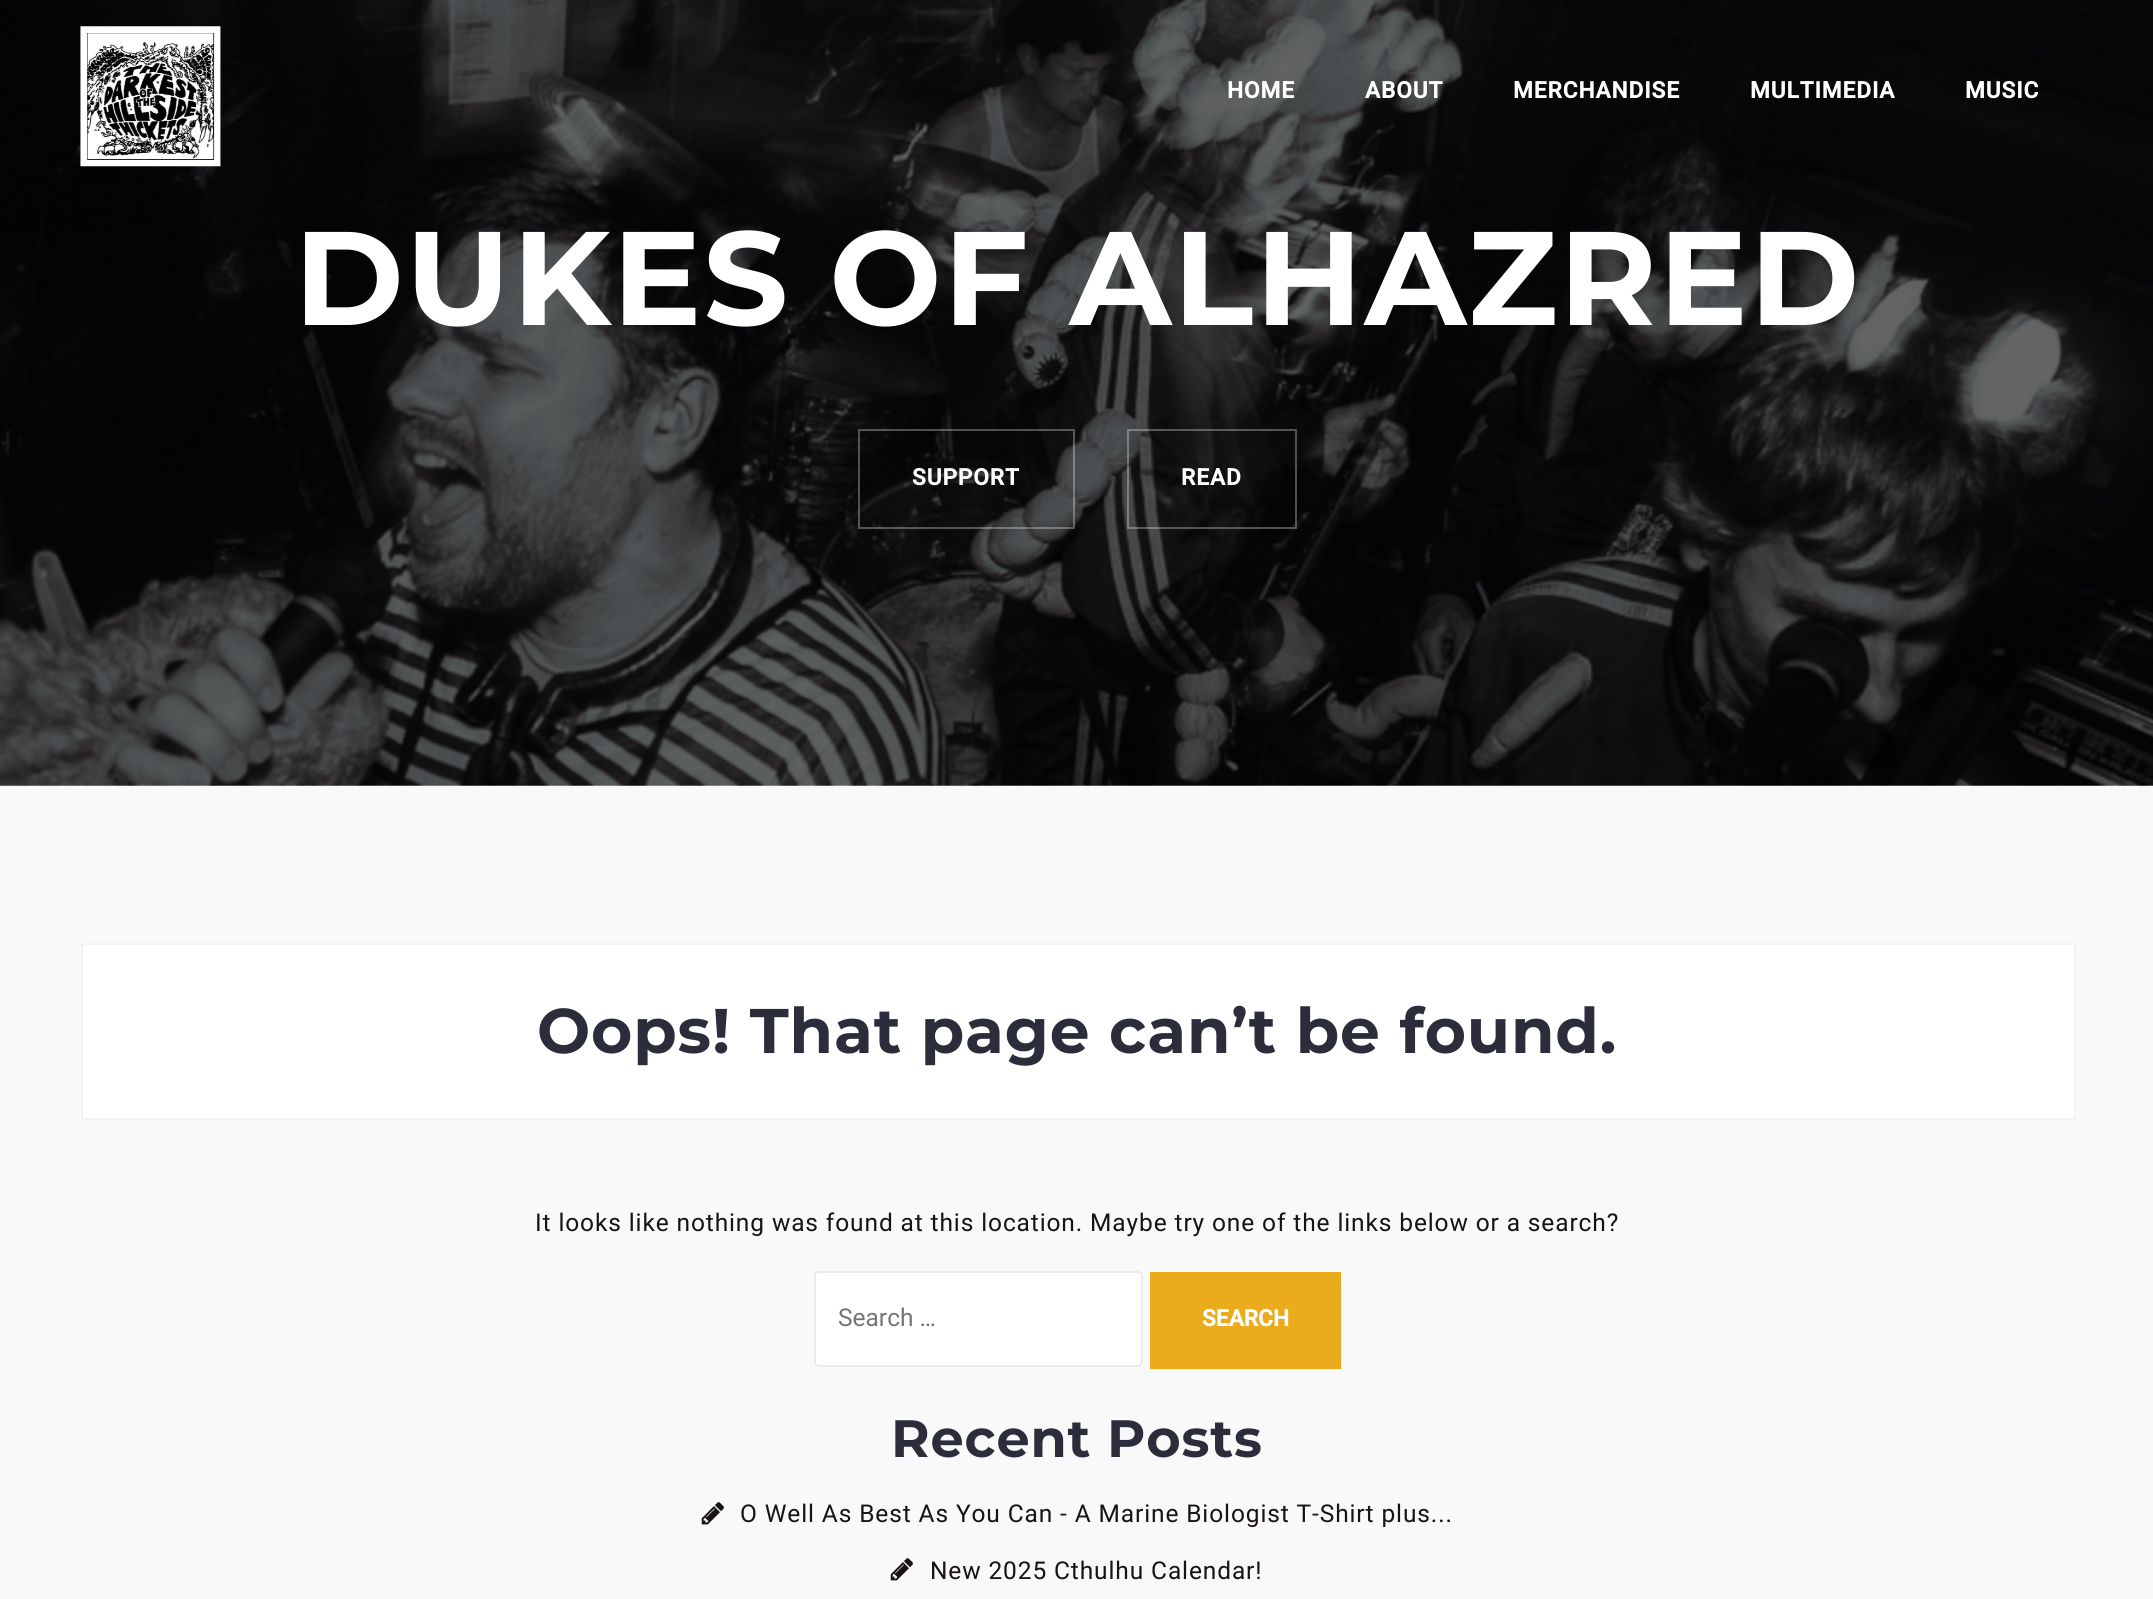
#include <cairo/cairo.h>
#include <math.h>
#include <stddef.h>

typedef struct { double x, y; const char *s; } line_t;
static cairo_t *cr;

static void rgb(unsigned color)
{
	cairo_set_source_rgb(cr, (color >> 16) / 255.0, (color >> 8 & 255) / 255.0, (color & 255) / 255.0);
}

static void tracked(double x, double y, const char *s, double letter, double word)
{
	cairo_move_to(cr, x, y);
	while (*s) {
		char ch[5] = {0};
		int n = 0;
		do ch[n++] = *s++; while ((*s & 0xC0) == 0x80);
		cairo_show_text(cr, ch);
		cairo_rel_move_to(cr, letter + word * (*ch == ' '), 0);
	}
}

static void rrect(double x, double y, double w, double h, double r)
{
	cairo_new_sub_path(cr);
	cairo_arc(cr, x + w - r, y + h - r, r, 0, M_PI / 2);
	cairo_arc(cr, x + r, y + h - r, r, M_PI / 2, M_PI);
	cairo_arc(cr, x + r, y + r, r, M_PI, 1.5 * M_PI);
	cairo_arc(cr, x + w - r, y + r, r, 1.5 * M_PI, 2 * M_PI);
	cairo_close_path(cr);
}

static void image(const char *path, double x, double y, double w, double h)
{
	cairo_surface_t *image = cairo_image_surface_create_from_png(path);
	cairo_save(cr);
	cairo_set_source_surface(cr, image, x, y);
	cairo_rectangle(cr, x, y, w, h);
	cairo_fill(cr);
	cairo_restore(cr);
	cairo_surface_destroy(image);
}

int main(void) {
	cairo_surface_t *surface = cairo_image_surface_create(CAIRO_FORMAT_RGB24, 2153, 1599);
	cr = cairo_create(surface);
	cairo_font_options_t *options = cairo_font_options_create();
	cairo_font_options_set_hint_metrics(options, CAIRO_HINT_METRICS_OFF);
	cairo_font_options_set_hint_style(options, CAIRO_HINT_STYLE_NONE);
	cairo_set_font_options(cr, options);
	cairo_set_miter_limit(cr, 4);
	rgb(0xf9f9f9);
	cairo_paint(cr);
	image("img/2.png", 0, 0, 2153, 786);
	image("img/1.png", 80, 26, 141, 141);
	cairo_rectangle(cr, 859, 430, 215, 98);
	cairo_set_source_rgba(cr, 1, 1, 1, 0.3);
	cairo_stroke(cr);
	cairo_rectangle(cr, 1128, 430, 168, 98);
	cairo_stroke(cr);
	rgb(0xffffff);
	cairo_rectangle(cr, 82, 944, 1993, 175);
	cairo_fill_preserve(cr);
	rgb(0xf3f3f3);
	cairo_stroke(cr);
	rgb(0xffffff);
	rrect(815, 1272, 327, 94, 4);
	cairo_fill_preserve(cr);
	rgb(0xebebeb);
	cairo_stroke(cr);
	rgb(0xeaab1c);
	cairo_rectangle(cr, 1150, 1272, 191, 97);
	cairo_fill(cr);
	image("img/3.png", 701, 1502, 23, 23);
	image("img/4.png", 890, 1558, 23, 23);
	cairo_select_font_face(cr, "Roboto", CAIRO_FONT_SLANT_NORMAL, CAIRO_FONT_WEIGHT_BOLD);
	cairo_set_font_size(cr, 22.75);
	rgb(0xffffff);
	{
		static const line_t items[] = {
			{1227, 98, "HOME"},
			{1365, 98, "ABOUT"},
			{1513, 98, "MERCHANDISE"},
			{1750, 98, "MULTIMEDIA"},
			{1965, 98, "MUSIC"},
		};
		for (size_t i = 0; i < sizeof items / sizeof *items; i++) {
			tracked(items[i].x, items[i].y, items[i].s, 0.88, 0);
		}
	}
	cairo_select_font_face(cr, "Montserrat", CAIRO_FONT_SLANT_NORMAL, CAIRO_FONT_WEIGHT_BOLD);
	cairo_set_font_size(cr, 133);
	tracked(294, 325, "DUKES OF ALHAZRED", 1.75, 0);
	cairo_select_font_face(cr, "Roboto", CAIRO_FONT_SLANT_NORMAL, CAIRO_FONT_WEIGHT_BOLD);
	cairo_set_font_size(cr, 22.75);
	tracked(912, 485, "SUPPORT", 0.88, 0);
	tracked(1181, 485, "READ", 0.88, 0);
	cairo_select_font_face(cr, "Montserrat", CAIRO_FONT_SLANT_NORMAL, CAIRO_FONT_WEIGHT_BOLD);
	cairo_set_font_size(cr, 63);
	rgb(0x2b2d3a);
	tracked(537, 1053, "Oops! That page can’t be found.", 0.88, 0);
	cairo_select_font_face(cr, "Roboto", CAIRO_FONT_SLANT_NORMAL, CAIRO_FONT_WEIGHT_NORMAL);
	cairo_set_font_size(cr, 24.5);
	rgb(0x191313);
	tracked(535, 1231, "It looks like nothing was found at this location. Maybe try one of the links below or a search?", 0.88, 0);
	rgb(0x757575);
	cairo_move_to(cr, 838, 1326);
	cairo_show_text(cr, "Search …");
	cairo_select_font_face(cr, "Roboto", CAIRO_FONT_SLANT_NORMAL, CAIRO_FONT_WEIGHT_BOLD);
	cairo_set_font_size(cr, 22.75);
	rgb(0xffffff);
	cairo_move_to(cr, 1202, 1326);
	cairo_show_text(cr, "SEARCH");
	cairo_select_font_face(cr, "Montserrat", CAIRO_FONT_SLANT_NORMAL, CAIRO_FONT_WEIGHT_BOLD);
	cairo_set_font_size(cr, 52.5);
	rgb(0x2b2d3a);
	tracked(891, 1457, "Recent Posts", 0.88, 0);
	cairo_select_font_face(cr, "Roboto", CAIRO_FONT_SLANT_NORMAL, CAIRO_FONT_WEIGHT_NORMAL);
	cairo_set_font_size(cr, 24.5);
	rgb(0x191313);
	tracked(740, 1522, "O Well As Best As You Can - A Marine Biologist T-Shirt plus...", 0.88, 0);
	tracked(930, 1579, "New 2025 Cthulhu Calendar!", 0.88, 0);
	cairo_surface_write_to_png(surface, "page.png");
	cairo_font_options_destroy(options);
	cairo_destroy(cr);
	cairo_surface_destroy(surface);
	return 0;
}
